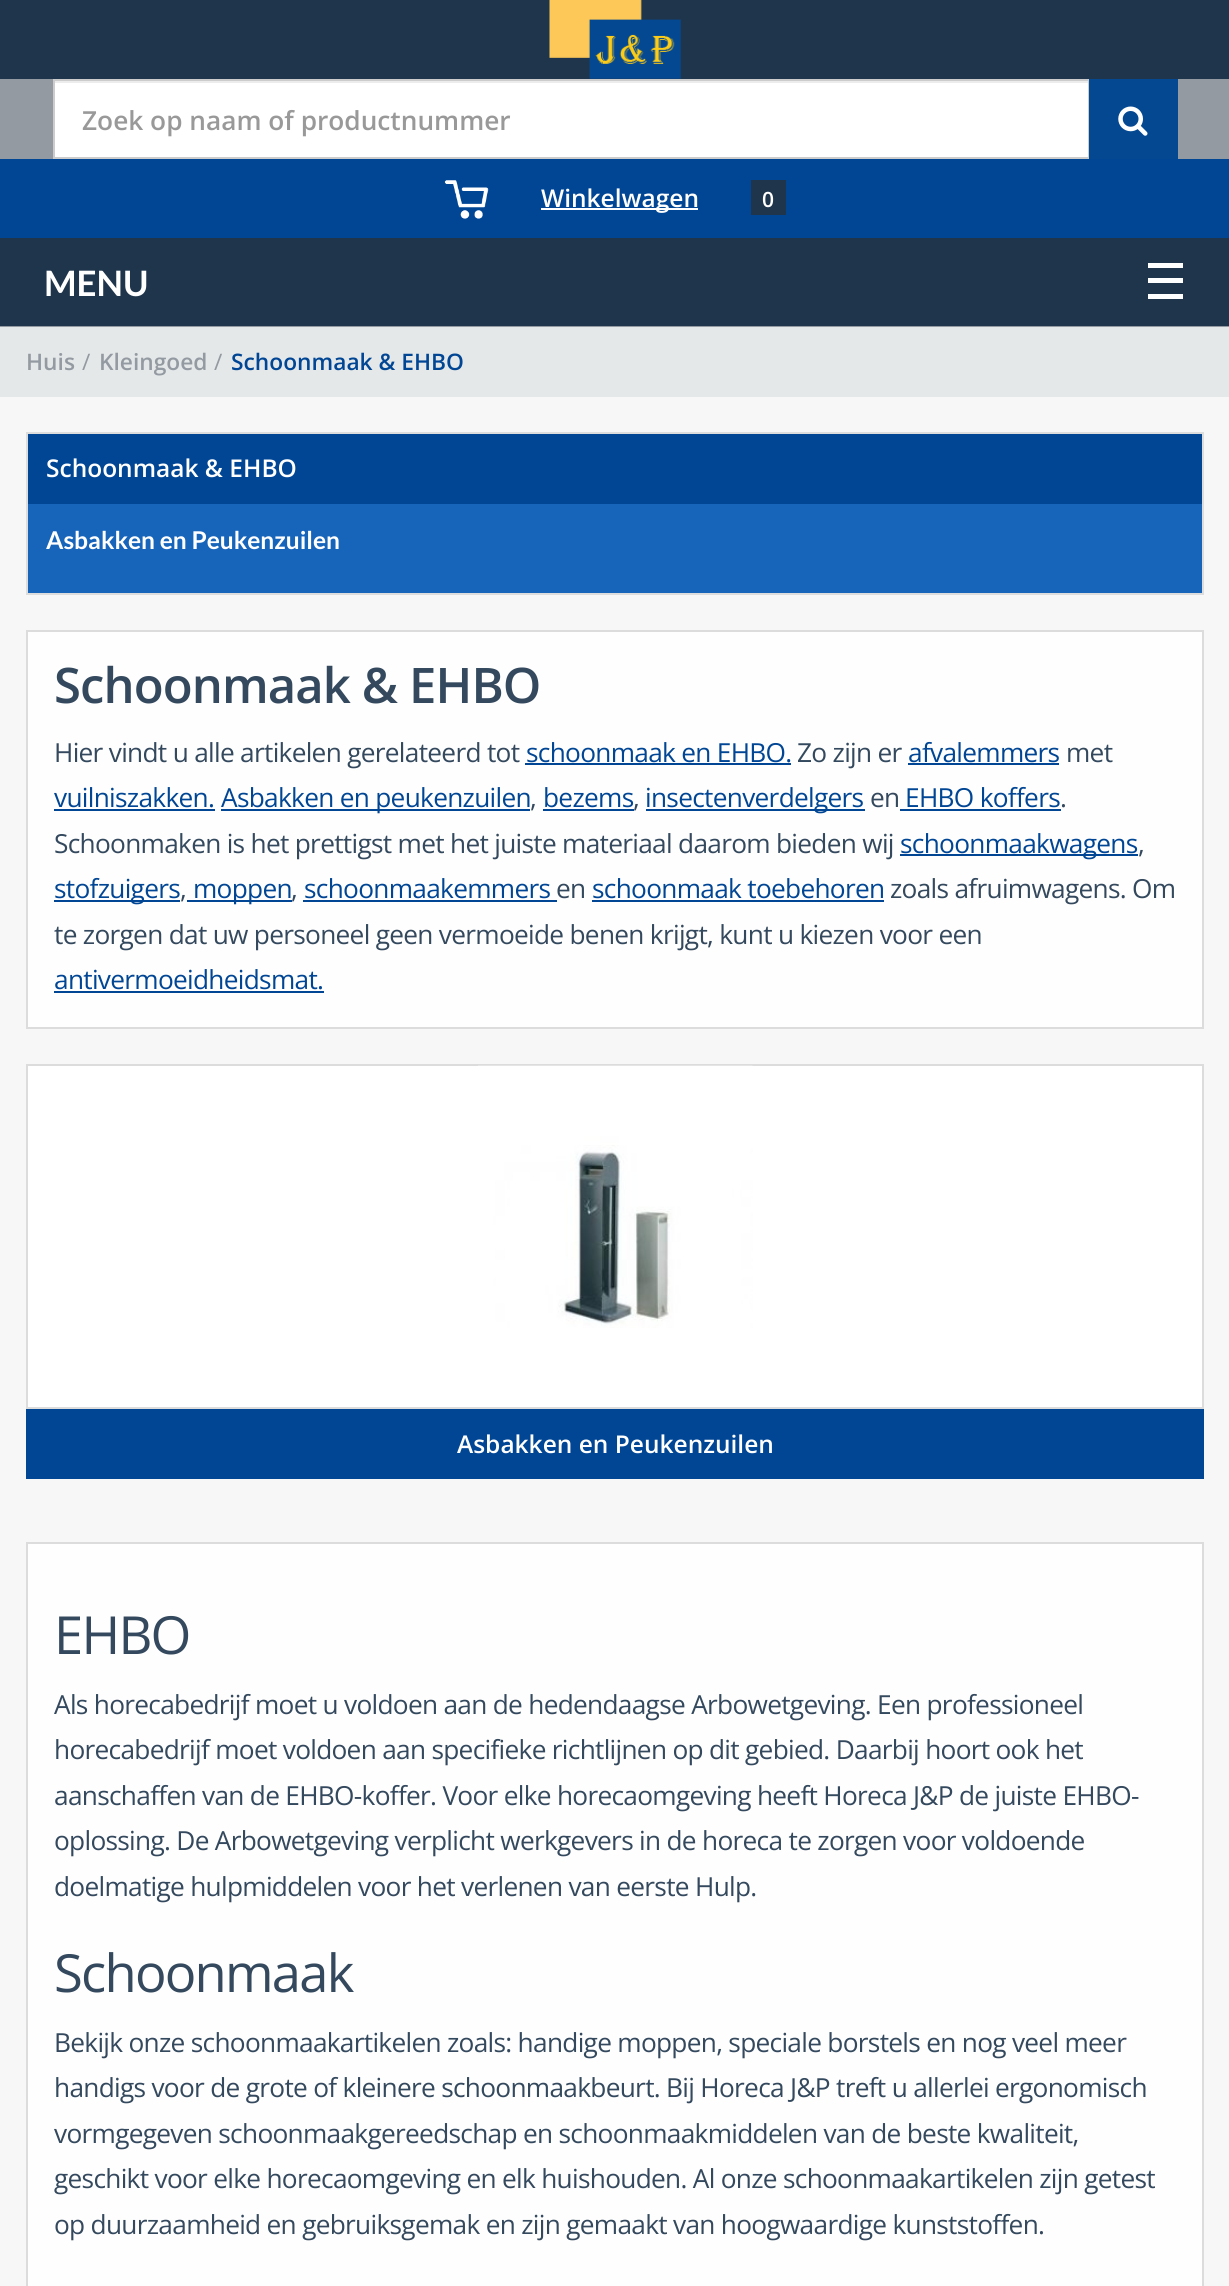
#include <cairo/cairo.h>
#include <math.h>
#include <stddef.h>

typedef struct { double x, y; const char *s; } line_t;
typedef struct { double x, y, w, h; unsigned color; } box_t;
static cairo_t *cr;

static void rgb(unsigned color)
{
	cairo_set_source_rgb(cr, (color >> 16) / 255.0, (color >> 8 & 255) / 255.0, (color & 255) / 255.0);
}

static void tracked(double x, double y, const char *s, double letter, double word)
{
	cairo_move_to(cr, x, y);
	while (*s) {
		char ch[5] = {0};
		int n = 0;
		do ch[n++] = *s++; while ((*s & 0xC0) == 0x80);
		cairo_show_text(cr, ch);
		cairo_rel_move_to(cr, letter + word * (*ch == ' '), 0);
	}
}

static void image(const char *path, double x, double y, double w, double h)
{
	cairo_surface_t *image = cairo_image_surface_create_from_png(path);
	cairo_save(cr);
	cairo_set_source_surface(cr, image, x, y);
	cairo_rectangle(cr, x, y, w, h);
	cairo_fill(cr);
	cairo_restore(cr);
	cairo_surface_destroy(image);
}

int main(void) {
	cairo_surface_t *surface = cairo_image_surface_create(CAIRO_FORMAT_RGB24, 1229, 2286);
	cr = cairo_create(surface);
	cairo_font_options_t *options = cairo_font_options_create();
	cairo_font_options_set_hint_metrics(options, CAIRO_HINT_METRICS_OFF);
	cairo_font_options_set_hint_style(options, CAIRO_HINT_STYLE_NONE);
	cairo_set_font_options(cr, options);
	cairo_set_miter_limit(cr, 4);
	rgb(0x939aa1);
	cairo_paint(cr);
	rgb(0x1f354c);
	cairo_rectangle(cr, 0, 0, 1229, 79);
	cairo_fill(cr);
	image("img/1.png", 549, 0, 132, 79);
	rgb(0xffffff);
	cairo_rectangle(cr, 55, 83, 1033, 74);
	cairo_fill(cr);
	rgb(0xececec);
	cairo_rectangle(cr, 54, 81, 1035, 2);
	cairo_fill(cr);
	cairo_rectangle(cr, 54, 80, 1035, 78);
	rgb(0xcccccc);
	cairo_stroke(cr);
	rgb(0x044891);
	cairo_rectangle(cr, 1089, 79, 89, 80);
	cairo_fill(cr);
	image("img/2.png", 1118, 106, 30, 30);
	rgb(0x014694);
	cairo_rectangle(cr, 0, 159, 1229, 79);
	cairo_fill(cr);
	image("img/3.png", 444, 180, 45, 39);
	{
		static const box_t items[] = {
			{541, 208, 157, 2, 0xffffff},
			{751, 180, 35, 35, 0x1f354c},
			{0, 238, 1229, 88, 0x1f354c},
			{1148, 263, 35, 5, 0xffffff},
			{1148, 278, 35, 5, 0xffffff},
			{1148, 294, 35, 5, 0xffffff},
			{0, 327, 1229, 70, 0xe5e8e9},
			{0, 397, 1229, 1889, 0xf7f7f7},
		};
		for (size_t i = 0; i < sizeof items / sizeof *items; i++) {
			rgb(items[i].color);
			cairo_rectangle(cr, items[i].x, items[i].y, items[i].w, items[i].h);
			cairo_fill(cr);
		}
	}
	cairo_rectangle(cr, 27, 433, 1176, 161);
	rgb(0xdddddd);
	cairo_stroke(cr);
	rgb(0x014694);
	cairo_rectangle(cr, 28, 434, 1174, 70);
	cairo_fill(cr);
	rgb(0x1765bb);
	cairo_rectangle(cr, 28, 504, 1174, 89);
	cairo_fill(cr);
	rgb(0xfefefe);
	cairo_rectangle(cr, 27, 631, 1176, 397);
	cairo_fill_preserve(cr);
	rgb(0xdcdcdc);
	cairo_stroke(cr);
	{
		static const box_t items[] = {
			{525, 763, 266, 2, 0x014694},
			{908, 763, 151, 2, 0x014694},
			{54, 809, 161, 2, 0x014694},
			{221, 809, 309, 2, 0x014694},
			{543, 809, 91, 2, 0x014694},
			{646, 809, 219, 2, 0x014694},
			{900, 809, 161, 2, 0x014694},
			{900, 854, 238, 2, 0x014694},
			{54, 900, 126, 2, 0x014694},
			{187, 900, 105, 2, 0x014694},
			{303, 900, 254, 2, 0x014694},
			{592, 900, 292, 2, 0x014694},
			{54, 991, 270, 2, 0x014694},
		};
		for (size_t i = 0; i < sizeof items / sizeof *items; i++) {
			rgb(items[i].color);
			cairo_rectangle(cr, items[i].x, items[i].y, items[i].w, items[i].h);
			cairo_fill(cr);
		}
	}
	rgb(0xffffff);
	cairo_rectangle(cr, 27, 1065, 1176, 343);
	cairo_fill_preserve(cr);
	rgb(0xdcdcdc);
	cairo_stroke(cr);
	image("img/4.png", 478, 1065, 275, 263);
	rgb(0x014694);
	cairo_rectangle(cr, 26, 1409, 1178, 70);
	cairo_fill(cr);
	rgb(0xfefefe);
	cairo_rectangle(cr, 27, 1543, 1176, 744);
	cairo_fill_preserve(cr);
	rgb(0xdcdcdc);
	cairo_stroke(cr);
	cairo_select_font_face(cr, "Open Sans SemiBold", CAIRO_FONT_SLANT_NORMAL, CAIRO_FONT_WEIGHT_NORMAL);
	cairo_set_font_size(cr, 26.25);
	rgb(0x999999);
	cairo_move_to(cr, 82, 130);
	cairo_show_text(cr, "Zoek op naam of productnummer");
	cairo_set_font_size(cr, 24.5);
	rgb(0xffffff);
	cairo_move_to(cr, 541, 207);
	cairo_show_text(cr, "Winkelwagen");
	cairo_set_font_size(cr, 21);
	cairo_move_to(cr, 762, 207);
	cairo_show_text(cr, "0");
	cairo_select_font_face(cr, "Lato", CAIRO_FONT_SLANT_NORMAL, CAIRO_FONT_WEIGHT_BOLD);
	cairo_set_font_size(cr, 35);
	cairo_move_to(cr, 44, 296);
	cairo_show_text(cr, "MENU");
	cairo_select_font_face(cr, "Open Sans SemiBold", CAIRO_FONT_SLANT_NORMAL, CAIRO_FONT_WEIGHT_NORMAL);
	cairo_set_font_size(cr, 22.75);
	rgb(0x939aa1);
	cairo_move_to(cr, 26, 370);
	cairo_show_text(cr, "Huis");
	cairo_select_font_face(cr, "Open Sans", CAIRO_FONT_SLANT_NORMAL, CAIRO_FONT_WEIGHT_NORMAL);
	cairo_move_to(cr, 82, 370);
	cairo_show_text(cr, "/");
	cairo_select_font_face(cr, "Open Sans SemiBold", CAIRO_FONT_SLANT_NORMAL, CAIRO_FONT_WEIGHT_NORMAL);
	cairo_move_to(cr, 99, 370);
	cairo_show_text(cr, "Kleingoed");
	cairo_select_font_face(cr, "Open Sans", CAIRO_FONT_SLANT_NORMAL, CAIRO_FONT_WEIGHT_NORMAL);
	cairo_move_to(cr, 214, 370);
	cairo_show_text(cr, "/");
	cairo_select_font_face(cr, "Open Sans SemiBold", CAIRO_FONT_SLANT_NORMAL, CAIRO_FONT_WEIGHT_NORMAL);
	rgb(0x014694);
	cairo_move_to(cr, 231, 370);
	cairo_show_text(cr, "Schoonmaak & EHBO");
	cairo_set_font_size(cr, 24.5);
	rgb(0xffffff);
	cairo_move_to(cr, 46, 477);
	cairo_show_text(cr, "Schoonmaak & EHBO");
	cairo_select_font_face(cr, "Lato", CAIRO_FONT_SLANT_NORMAL, CAIRO_FONT_WEIGHT_BOLD);
	cairo_move_to(cr, 46, 549);
	cairo_show_text(cr, "Asbakken en Peukenzuilen");
	cairo_select_font_face(cr, "Open Sans SemiBold", CAIRO_FONT_SLANT_NORMAL, CAIRO_FONT_WEIGHT_NORMAL);
	cairo_set_font_size(cr, 49);
	rgb(0x34495e);
	tracked(54, 703, "Schoonmaak & EHBO", -0.9, 0);
	cairo_select_font_face(cr, "Open Sans", CAIRO_FONT_SLANT_NORMAL, CAIRO_FONT_WEIGHT_NORMAL);
	cairo_set_font_size(cr, 26.25);
	tracked(54, 762, "Hier vindt u alle artikelen gerelateerd tot", -0.7, 0);
	rgb(0x014694);
	tracked(526, 762, "schoonmaak en EHBO.", -0.7, 0);
	rgb(0x34495e);
	tracked(797, 762, "Zo zijn er", -0.7, 0);
	rgb(0x014694);
	tracked(908, 762, "afvalemmers", -0.7, 0);
	rgb(0x34495e);
	tracked(1066, 762, "met", -0.7, 0);
	rgb(0x014694);
	tracked(54, 807, "vuilniszakken.", -0.7, 0);
	tracked(221, 807, "Asbakken en peukenzuilen", -0.7, 0);
	rgb(0x34495e);
	tracked(530, 807, ",", -0.7, 0);
	rgb(0x014694);
	tracked(543, 807, "bezems", -0.7, 0);
	rgb(0x34495e);
	tracked(633, 807, ",", -0.7, 0);
	rgb(0x014694);
	tracked(645, 807, "insectenverdelgers", -0.7, 0);
	rgb(0x34495e);
	tracked(870, 807, "en", -0.7, 0);
	rgb(0x014694);
	tracked(905, 807, "EHBO koffers", -0.7, 0);
	rgb(0x34495e);
	tracked(1060, 807, ".", -0.7, 0);
	tracked(54, 853, "Schoonmaken is het prettigst met het juiste materiaal daarom bieden wij", -0.7, 0);
	rgb(0x014694);
	tracked(900, 853, "schoonmaakwagens", -0.7, 0);
	rgb(0x34495e);
	tracked(1138, 853, ",", -0.7, 0);
	rgb(0x014694);
	tracked(54, 898, "stofzuigers", -0.7, 0);
	rgb(0x34495e);
	tracked(180, 898, ",", -0.7, 0);
	rgb(0x014694);
	tracked(193, 898, "moppen", -0.7, 0);
	rgb(0x34495e);
	tracked(291, 898, ",", -0.7, 0);
	rgb(0x014694);
	tracked(304, 898, "schoonmaakemmers", -0.7, 0);
	rgb(0x34495e);
	tracked(556, 898, "en", -0.7, 0);
	rgb(0x014694);
	tracked(592, 898, "schoonmaak toebehoren", -0.7, 0);
	rgb(0x34495e);
	tracked(890, 898, "zoals afruimwagens. Om", -0.7, 0);
	tracked(54, 944, "te zorgen dat uw personeel geen vermoeide benen krijgt, kunt u kiezen voor een", -0.7, 0);
	rgb(0x014694);
	tracked(54, 989, "antivermoeidheidsmat.", -0.7, 0);
	cairo_select_font_face(cr, "Open Sans SemiBold", CAIRO_FONT_SLANT_NORMAL, CAIRO_FONT_WEIGHT_NORMAL);
	cairo_set_font_size(cr, 24.5);
	rgb(0xffffff);
	cairo_move_to(cr, 457, 1453);
	cairo_show_text(cr, "Asbakken en Peukenzuilen");
	cairo_select_font_face(cr, "Open Sans", CAIRO_FONT_SLANT_NORMAL, CAIRO_FONT_WEIGHT_NORMAL);
	cairo_set_font_size(cr, 52.5);
	rgb(0x34495e);
	tracked(54, 1654, "EHBO", -1.75, 0);
	cairo_set_font_size(cr, 26.25);
	{
		static const line_t items[] = {
			{54, 1714, "Als horecabedrijf moet u voldoen aan de hedendaagse Arbowetgeving. Een professioneel"},
			{54, 1759, "horecabedrijf moet voldoen aan specifieke richtlijnen op dit gebied. Daarbij hoort ook het"},
			{54, 1805, "aanschaffen van de EHBO-koffer. Voor elke horecaomgeving heeft Horeca J&P de juiste EHBO-"},
			{54, 1850, "oplossing. De Arbowetgeving verplicht werkgevers in de horeca te zorgen voor voldoende"},
			{54, 1896, "doelmatige hulpmiddelen voor het verlenen van eerste Hulp."},
		};
		for (size_t i = 0; i < sizeof items / sizeof *items; i++) {
			tracked(items[i].x, items[i].y, items[i].s, -0.7, 0);
		}
	}
	cairo_set_font_size(cr, 52.5);
	tracked(54, 1992, "Schoonmaak", -1.75, 0);
	cairo_set_font_size(cr, 26.25);
	{
		static const line_t items[] = {
			{54, 2052, "Bekijk onze schoonmaakartikelen zoals: handige moppen, speciale borstels en nog veel meer"},
			{54, 2097, "handigs voor de grote of kleinere schoonmaakbeurt. Bij Horeca J&P treft u allerlei ergonomisch"},
			{54, 2143, "vormgegeven schoonmaakgereedschap en schoonmaakmiddelen van de beste kwaliteit,"},
			{54, 2188, "geschikt voor elke horecaomgeving en elk huishouden. Al onze schoonmaakartikelen zijn getest"},
			{54, 2234, "op duurzaamheid en gebruiksgemak en zijn gemaakt van hoogwaardige kunststoffen."},
		};
		for (size_t i = 0; i < sizeof items / sizeof *items; i++) {
			tracked(items[i].x, items[i].y, items[i].s, -0.7, 0);
		}
	}
	cairo_surface_write_to_png(surface, "page.png");
	cairo_font_options_destroy(options);
	cairo_destroy(cr);
	cairo_surface_destroy(surface);
	return 0;
}
